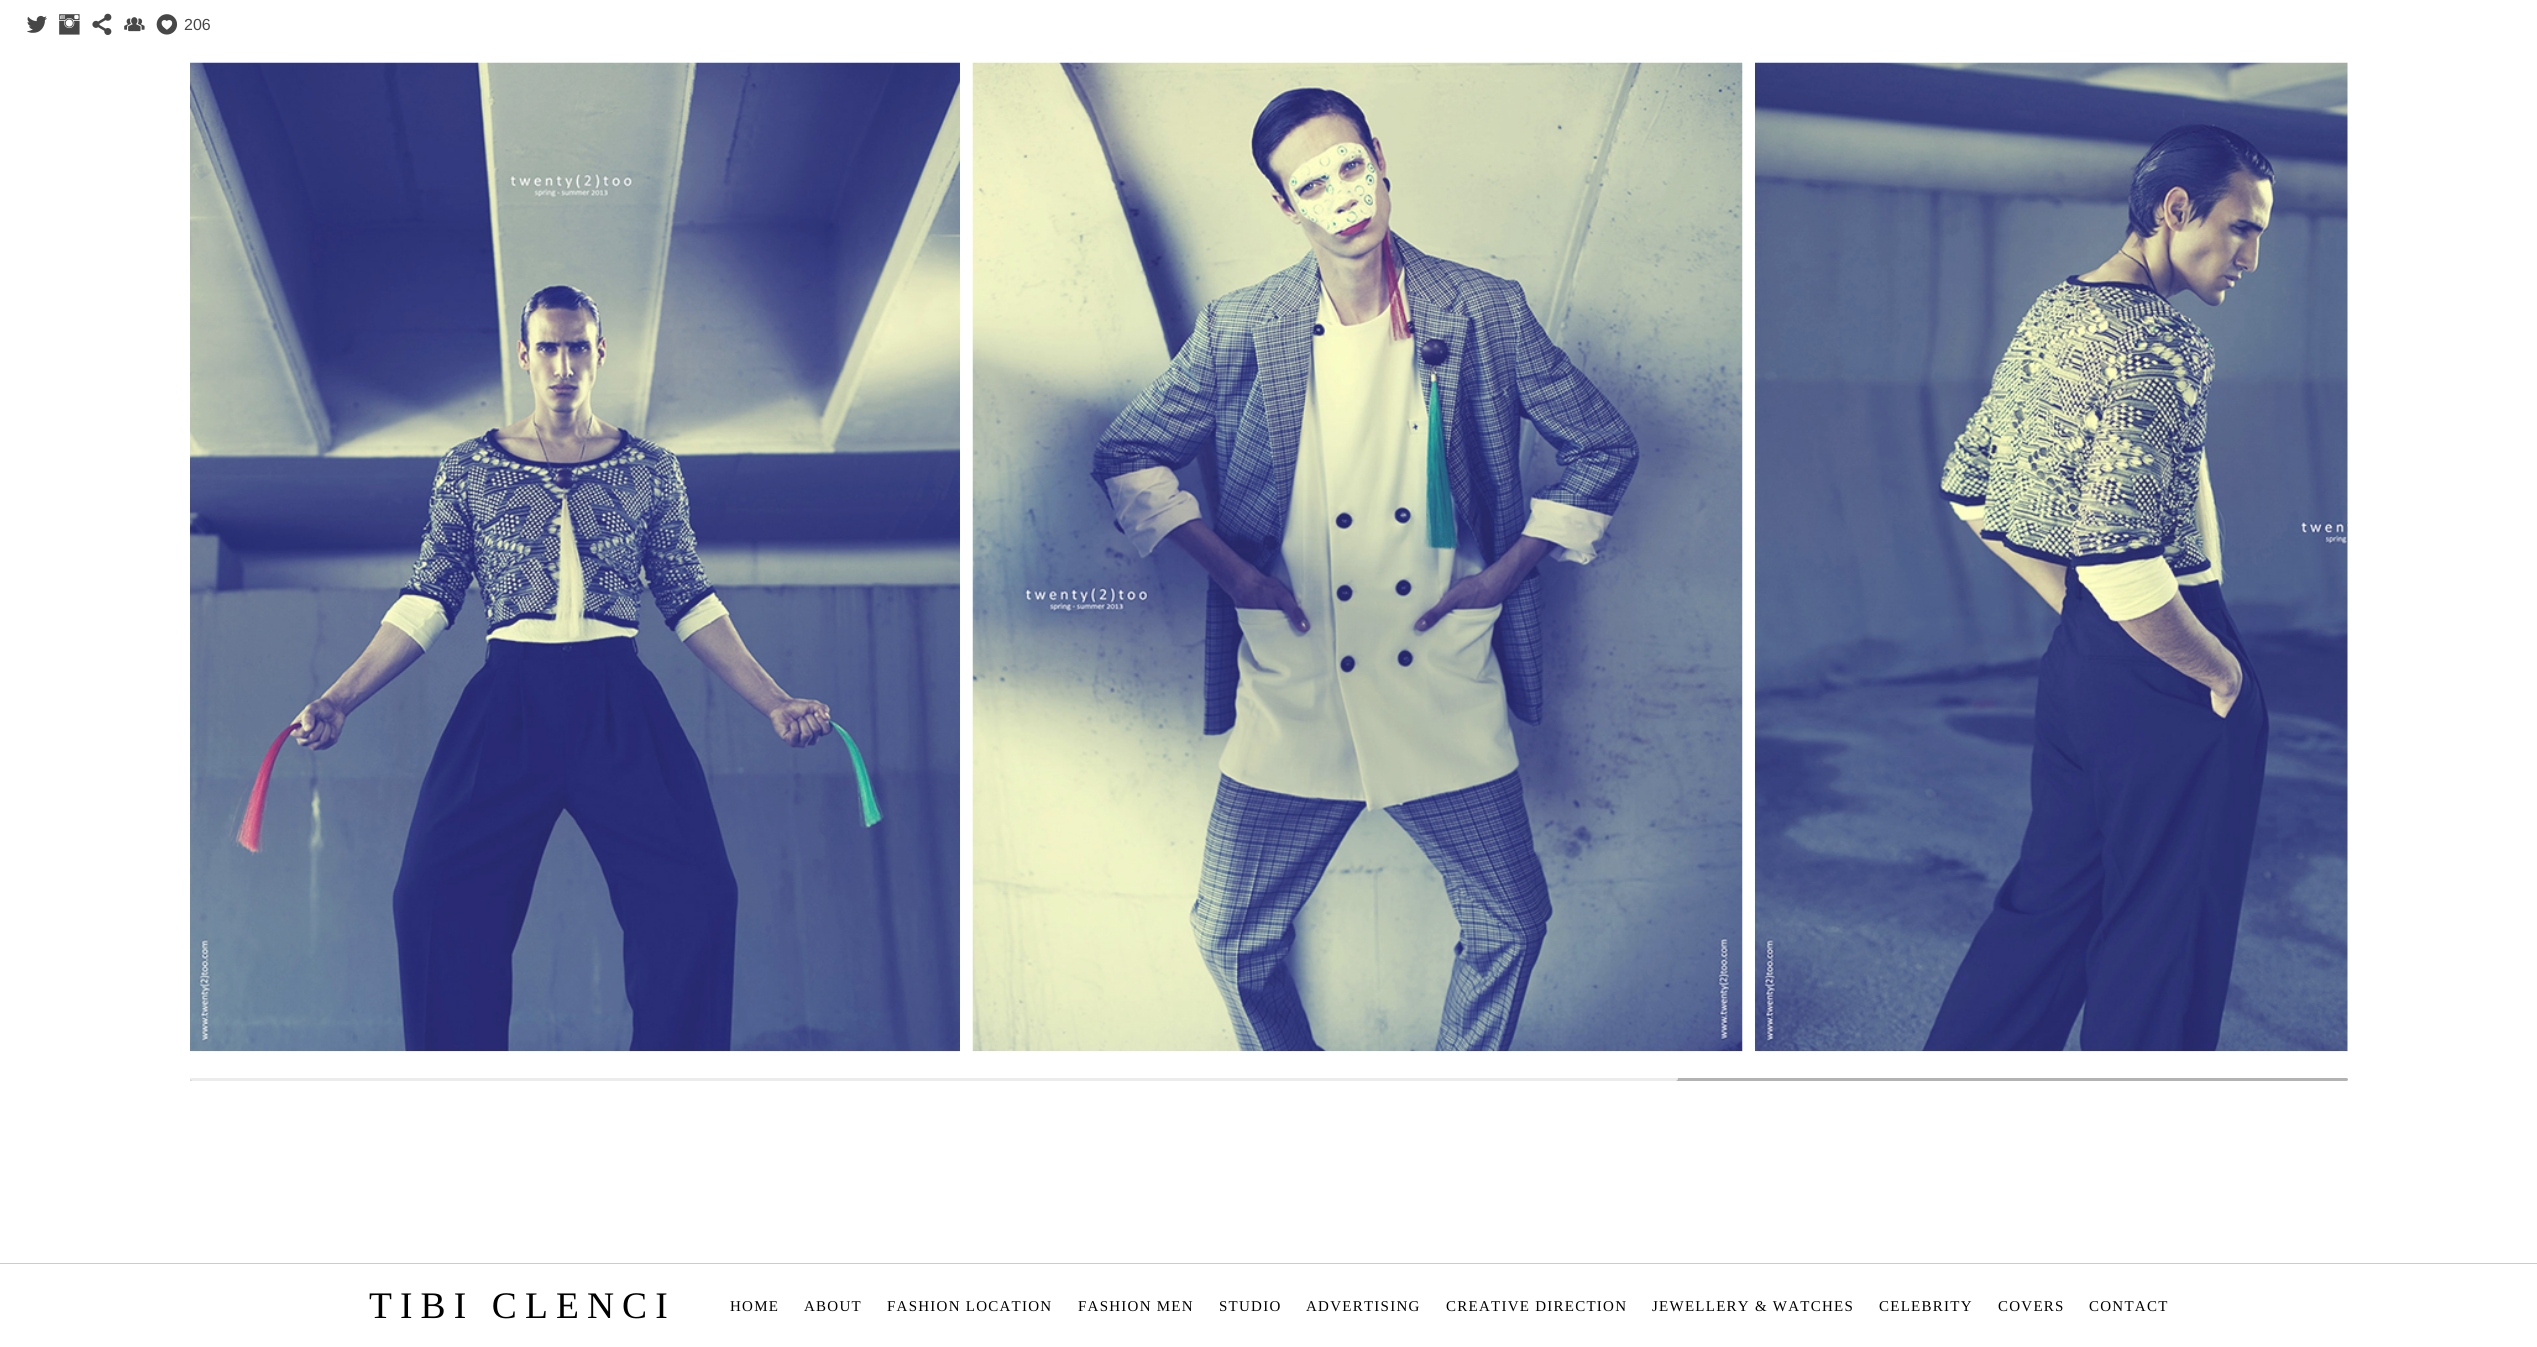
#include <cairo/cairo.h>
#include <math.h>
#include <stddef.h>

typedef struct { double x, y; const char *s; } line_t;
static cairo_t *cr;

static void rgb(unsigned color)
{
	cairo_set_source_rgb(cr, (color >> 16) / 255.0, (color >> 8 & 255) / 255.0, (color & 255) / 255.0);
}

static void tracked(double x, double y, const char *s, double letter, double word)
{
	cairo_move_to(cr, x, y);
	while (*s) {
		char ch[5] = {0};
		int n = 0;
		do ch[n++] = *s++; while ((*s & 0xC0) == 0x80);
		cairo_show_text(cr, ch);
		cairo_rel_move_to(cr, letter + word * (*ch == ' '), 0);
	}
}

static void rrect(double x, double y, double w, double h, double r)
{
	cairo_new_sub_path(cr);
	cairo_arc(cr, x + w - r, y + h - r, r, 0, M_PI / 2);
	cairo_arc(cr, x + r, y + h - r, r, M_PI / 2, M_PI);
	cairo_arc(cr, x + r, y + r, r, M_PI, 1.5 * M_PI);
	cairo_arc(cr, x + w - r, y + r, r, 1.5 * M_PI, 2 * M_PI);
	cairo_close_path(cr);
}

static void image(const char *path, double x, double y, double w, double h)
{
	cairo_surface_t *image = cairo_image_surface_create_from_png(path);
	cairo_save(cr);
	cairo_set_source_surface(cr, image, x, y);
	cairo_rectangle(cr, x, y, w, h);
	cairo_fill(cr);
	cairo_restore(cr);
	cairo_surface_destroy(image);
}

int main(void) {
	cairo_surface_t *surface = cairo_image_surface_create(CAIRO_FORMAT_RGB24, 2537, 1347);
	cr = cairo_create(surface);
	cairo_font_options_t *options = cairo_font_options_create();
	cairo_font_options_set_hint_metrics(options, CAIRO_HINT_METRICS_OFF);
	cairo_font_options_set_hint_style(options, CAIRO_HINT_STYLE_NONE);
	cairo_set_font_options(cr, options);
	cairo_set_miter_limit(cr, 4);
	rgb(0xffffff);
	cairo_paint(cr);
	image("img/1.png", 27, 15, 20, 18);
	image("img/2.png", 59, 14, 21, 21);
	image("img/3.png", 92, 13, 20, 22);
	image("img/4.png", 124, 17, 21, 15);
	image("img/5.png", 156, 14, 22, 21);
	image("img/6.png", 190, 62, 770, 990);
	image("img/7.png", 972, 62, 771, 990);
	image("img/8.png", 1755, 62, 593, 990);
	rgb(0xb3b3b3);
	rrect(190, 1078, 2158, 3, 1.5);
	cairo_fill(cr);
	cairo_set_source_rgba(cr, 1, 1, 1, 0.75);
	rrect(190, 1076, 1488, 5, 2.5);
	cairo_fill(cr);
	rgb(0xcccccc);
	cairo_rectangle(cr, 0, 1263, 2537, 1);
	cairo_fill(cr);
	cairo_select_font_face(cr, "Liberation Sans", CAIRO_FONT_SLANT_NORMAL, CAIRO_FONT_WEIGHT_NORMAL);
	cairo_set_font_size(cr, 16);
	rgb(0x474747);
	cairo_move_to(cr, 184, 30);
	cairo_show_text(cr, "206");
	cairo_select_font_face(cr, "Liberation Serif", CAIRO_FONT_SLANT_NORMAL, CAIRO_FONT_WEIGHT_NORMAL);
	cairo_set_font_size(cr, 37.5);
	rgb(0x000000);
	tracked(369, 1318, "TIBI CLENCI", 8.1, 0);
	cairo_set_font_size(cr, 15);
	{
		static const line_t items[] = {
			{730, 1311, "HOME"},
			{804, 1311, "ABOUT"},
			{887, 1311, "FASHION LOCATION"},
			{1078, 1311, "FASHION MEN"},
			{1219, 1311, "STUDIO"},
			{1306, 1311, "ADVERTISING"},
			{1446, 1311, "CREATIVE DIRECTION"},
			{1652, 1311, "JEWELLERY & WATCHES"},
			{1879, 1311, "CELEBRITY"},
			{1998, 1311, "COVERS"},
			{2089, 1311, "CONTACT"},
		};
		for (size_t i = 0; i < sizeof items / sizeof *items; i++) {
			tracked(items[i].x, items[i].y, items[i].s, 1.25, 0);
		}
	}
	cairo_surface_write_to_png(surface, "page.png");
	cairo_font_options_destroy(options);
	cairo_destroy(cr);
	cairo_surface_destroy(surface);
	return 0;
}
